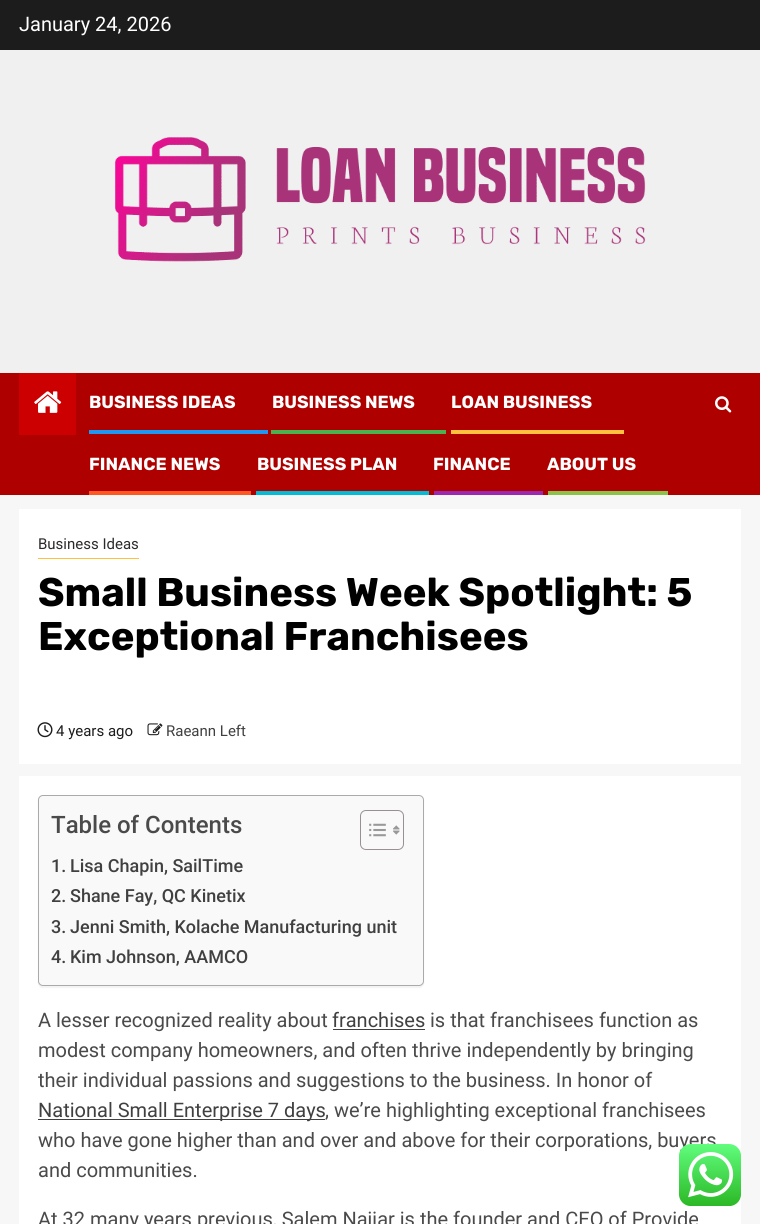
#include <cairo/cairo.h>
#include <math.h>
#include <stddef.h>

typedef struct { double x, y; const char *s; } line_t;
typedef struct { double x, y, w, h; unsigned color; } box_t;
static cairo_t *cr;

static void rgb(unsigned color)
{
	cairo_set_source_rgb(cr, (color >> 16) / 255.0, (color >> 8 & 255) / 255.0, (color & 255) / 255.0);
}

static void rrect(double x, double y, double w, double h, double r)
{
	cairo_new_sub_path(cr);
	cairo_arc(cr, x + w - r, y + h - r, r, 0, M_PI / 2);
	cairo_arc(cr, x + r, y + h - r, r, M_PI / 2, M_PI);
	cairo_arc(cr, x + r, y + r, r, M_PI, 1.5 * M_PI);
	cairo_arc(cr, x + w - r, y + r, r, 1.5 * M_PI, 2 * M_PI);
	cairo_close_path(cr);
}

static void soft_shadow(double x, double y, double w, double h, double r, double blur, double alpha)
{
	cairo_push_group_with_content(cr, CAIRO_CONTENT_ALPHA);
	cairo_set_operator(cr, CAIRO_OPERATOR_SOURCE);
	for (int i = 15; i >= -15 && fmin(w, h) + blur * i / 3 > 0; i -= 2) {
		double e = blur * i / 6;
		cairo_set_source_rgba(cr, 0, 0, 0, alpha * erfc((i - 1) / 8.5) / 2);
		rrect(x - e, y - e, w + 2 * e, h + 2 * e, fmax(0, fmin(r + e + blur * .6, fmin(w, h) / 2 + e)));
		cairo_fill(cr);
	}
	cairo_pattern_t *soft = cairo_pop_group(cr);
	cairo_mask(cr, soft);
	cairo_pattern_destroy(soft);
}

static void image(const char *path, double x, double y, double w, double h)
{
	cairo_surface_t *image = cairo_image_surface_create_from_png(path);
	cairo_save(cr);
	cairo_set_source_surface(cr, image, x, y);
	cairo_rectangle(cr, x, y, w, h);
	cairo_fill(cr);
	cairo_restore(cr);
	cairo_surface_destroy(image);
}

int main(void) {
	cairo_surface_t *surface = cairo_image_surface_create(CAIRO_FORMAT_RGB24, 760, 1224);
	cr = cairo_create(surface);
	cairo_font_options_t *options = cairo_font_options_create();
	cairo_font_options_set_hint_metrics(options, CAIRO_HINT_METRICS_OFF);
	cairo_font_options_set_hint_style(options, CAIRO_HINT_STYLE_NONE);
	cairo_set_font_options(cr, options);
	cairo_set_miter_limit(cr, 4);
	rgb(0xf7f7f7);
	cairo_paint(cr);
	rgb(0xf0f0f0);
	cairo_rectangle(cr, 0, 50, 760, 323);
	cairo_fill(cr);
	rgb(0x1c1c1c);
	cairo_rectangle(cr, 0, 0, 760, 50);
	cairo_fill(cr);
	image("img/1.png", 114, 137, 532, 125);
	rgb(0xaf0000);
	cairo_rectangle(cr, 0, 373, 760, 122);
	cairo_fill(cr);
	rgb(0xcc0000);
	cairo_rectangle(cr, 19, 373, 57, 62);
	cairo_fill(cr);
	image("img/2.png", 34, 391, 28, 22);
	{
		static const box_t items[] = {
			{89, 430, 179, 4, 0x2196f3},
			{271, 430, 175, 4, 0x4caf50},
			{451, 430, 173, 4, 0xffbf3f},
			{89, 491, 162, 4, 0xff5722},
			{256, 491, 173, 4, 0x00bcd4},
			{434, 491, 109, 4, 0x9c27b0},
			{548, 491, 120, 4, 0x8bc34a},
		};
		for (size_t i = 0; i < sizeof items / sizeof *items; i++) {
			rgb(items[i].color);
			cairo_rectangle(cr, items[i].x, items[i].y, items[i].w, items[i].h);
			cairo_fill(cr);
		}
	}
	image("img/3.png", 715, 396, 17, 17);
	rgb(0xffffff);
	cairo_rectangle(cr, 19, 509, 722, 255);
	cairo_fill(cr);
	rgb(0xffbf3f);
	cairo_rectangle(cr, 38, 558, 101, 1);
	cairo_fill(cr);
	image("img/4.png", 37, 722, 16, 16);
	image("img/5.png", 147, 723, 16, 13);
	rgb(0xffffff);
	cairo_rectangle(cr, 19, 776, 722, 448);
	cairo_fill(cr);
	rgb(0x000000);
	soft_shadow(38, 796, 386, 192, 5, 0.5, 0.05);
	rgb(0xf9f9f9);
	rrect(38.5, 795.5, 385, 190, 4.5);
	cairo_fill_preserve(cr);
	rgb(0xaaaaaa);
	cairo_set_line_width(cr, 1);
	cairo_stroke(cr);
	rrect(360.5, 810.5, 43, 39, 5.5);
	rgb(0x999191);
	cairo_stroke(cr);
	image("img/6.png", 369, 823, 17, 14);
	image("img/7.png", 393, 825, 7, 10);
	rgb(0x404040);
	cairo_rectangle(cr, 333, 1029, 92, 1);
	cairo_fill(cr);
	cairo_rectangle(cr, 38, 1119, 287, 1);
	cairo_fill(cr);
	cairo_select_font_face(cr, "Roboto", CAIRO_FONT_SLANT_NORMAL, CAIRO_FONT_WEIGHT_NORMAL);
	cairo_set_font_size(cr, 20);
	rgb(0xffffff);
	cairo_move_to(cr, 19, 31);
	cairo_show_text(cr, "January 24, 2026");
	cairo_select_font_face(cr, "Rubik", CAIRO_FONT_SLANT_NORMAL, CAIRO_FONT_WEIGHT_BOLD);
	cairo_set_font_size(cr, 17.5);
	{
		static const line_t items[] = {
			{89, 408, "BUSINESS IDEAS"},
			{272, 408, "BUSINESS NEWS"},
			{451, 408, "LOAN BUSINESS"},
			{89, 470, "FINANCE NEWS"},
			{257, 470, "BUSINESS PLAN"},
			{433, 470, "FINANCE"},
			{547, 470, "ABOUT US"},
		};
		for (size_t i = 0; i < sizeof items / sizeof *items; i++) {
			cairo_move_to(cr, items[i].x, items[i].y);
			cairo_show_text(cr, items[i].s);
		}
	}
	cairo_select_font_face(cr, "Roboto", CAIRO_FONT_SLANT_NORMAL, CAIRO_FONT_WEIGHT_NORMAL);
	cairo_set_font_size(cr, 15);
	rgb(0x2b2b2b);
	cairo_move_to(cr, 38, 549);
	cairo_show_text(cr, "Business Ideas");
	cairo_select_font_face(cr, "Rubik", CAIRO_FONT_SLANT_NORMAL, CAIRO_FONT_WEIGHT_BOLD);
	cairo_set_font_size(cr, 40);
	rgb(0x000000);
	cairo_move_to(cr, 38, 606);
	cairo_show_text(cr, "Small Business Week Spotlight: 5");
	cairo_move_to(cr, 38, 650);
	cairo_show_text(cr, "Exceptional Franchisees");
	cairo_select_font_face(cr, "Roboto", CAIRO_FONT_SLANT_NORMAL, CAIRO_FONT_WEIGHT_NORMAL);
	cairo_set_font_size(cr, 15);
	rgb(0x1c1c1c);
	cairo_move_to(cr, 56, 736);
	cairo_show_text(cr, "4 years ago");
	rgb(0x404040);
	cairo_move_to(cr, 166, 736);
	cairo_show_text(cr, "Raeann Left");
	cairo_select_font_face(cr, "Roboto Medium", CAIRO_FONT_SLANT_NORMAL, CAIRO_FONT_WEIGHT_NORMAL);
	cairo_set_font_size(cr, 24);
	rgb(0x4a4a4a);
	cairo_move_to(cr, 51, 833);
	cairo_show_text(cr, "Table of Contents");
	cairo_set_font_size(cr, 18);
	rgb(0x404040);
	{
		static const line_t items[] = {
			{51, 872, "1."},
			{70, 872, "Lisa Chapin, SailTime"},
			{51, 902, "2."},
			{70, 902, "Shane Fay, QC Kinetix"},
			{51, 933, "3."},
			{70, 933, "Jenni Smith, Kolache Manufacturing unit"},
			{51, 963, "4."},
			{70, 963, "Kim Johnson, AAMCO"},
		};
		for (size_t i = 0; i < sizeof items / sizeof *items; i++) {
			cairo_move_to(cr, items[i].x, items[i].y);
			cairo_show_text(cr, items[i].s);
		}
	}
	cairo_select_font_face(cr, "Roboto", CAIRO_FONT_SLANT_NORMAL, CAIRO_FONT_WEIGHT_NORMAL);
	cairo_set_font_size(cr, 20);
	rgb(0x4a4a4a);
	cairo_move_to(cr, 38, 1027);
	cairo_show_text(cr, "A lesser recognized reality about");
	rgb(0x404040);
	cairo_move_to(cr, 332, 1027);
	cairo_show_text(cr, "franchises");
	rgb(0x4a4a4a);
	{
		static const line_t items[] = {
			{430, 1027, "is that franchisees function as"},
			{38, 1057, "modest company homeowners, and often thrive independently by bringing"},
			{38, 1087, "their individual passions and suggestions to the business. In honor of"},
		};
		for (size_t i = 0; i < sizeof items / sizeof *items; i++) {
			cairo_move_to(cr, items[i].x, items[i].y);
			cairo_show_text(cr, items[i].s);
		}
	}
	rgb(0x404040);
	cairo_move_to(cr, 38, 1117);
	cairo_show_text(cr, "National Small Enterprise 7 days");
	rgb(0x4a4a4a);
	{
		static const line_t items[] = {
			{325, 1117, ", we’re highlighting exceptional franchisees"},
			{38, 1147, "who have gone higher than and over and above for their corporations, buyers"},
			{38, 1177, "and communities."},
			{38, 1226, "At 32 many years previous, Salem Najjar is the founder and CEO of Provide"},
		};
		for (size_t i = 0; i < sizeof items / sizeof *items; i++) {
			cairo_move_to(cr, items[i].x, items[i].y);
			cairo_show_text(cr, items[i].s);
		}
	}
	image("img/8.png", 679, 1144, 62, 62);
	cairo_surface_write_to_png(surface, "page.png");
	cairo_font_options_destroy(options);
	cairo_destroy(cr);
	cairo_surface_destroy(surface);
	return 0;
}
